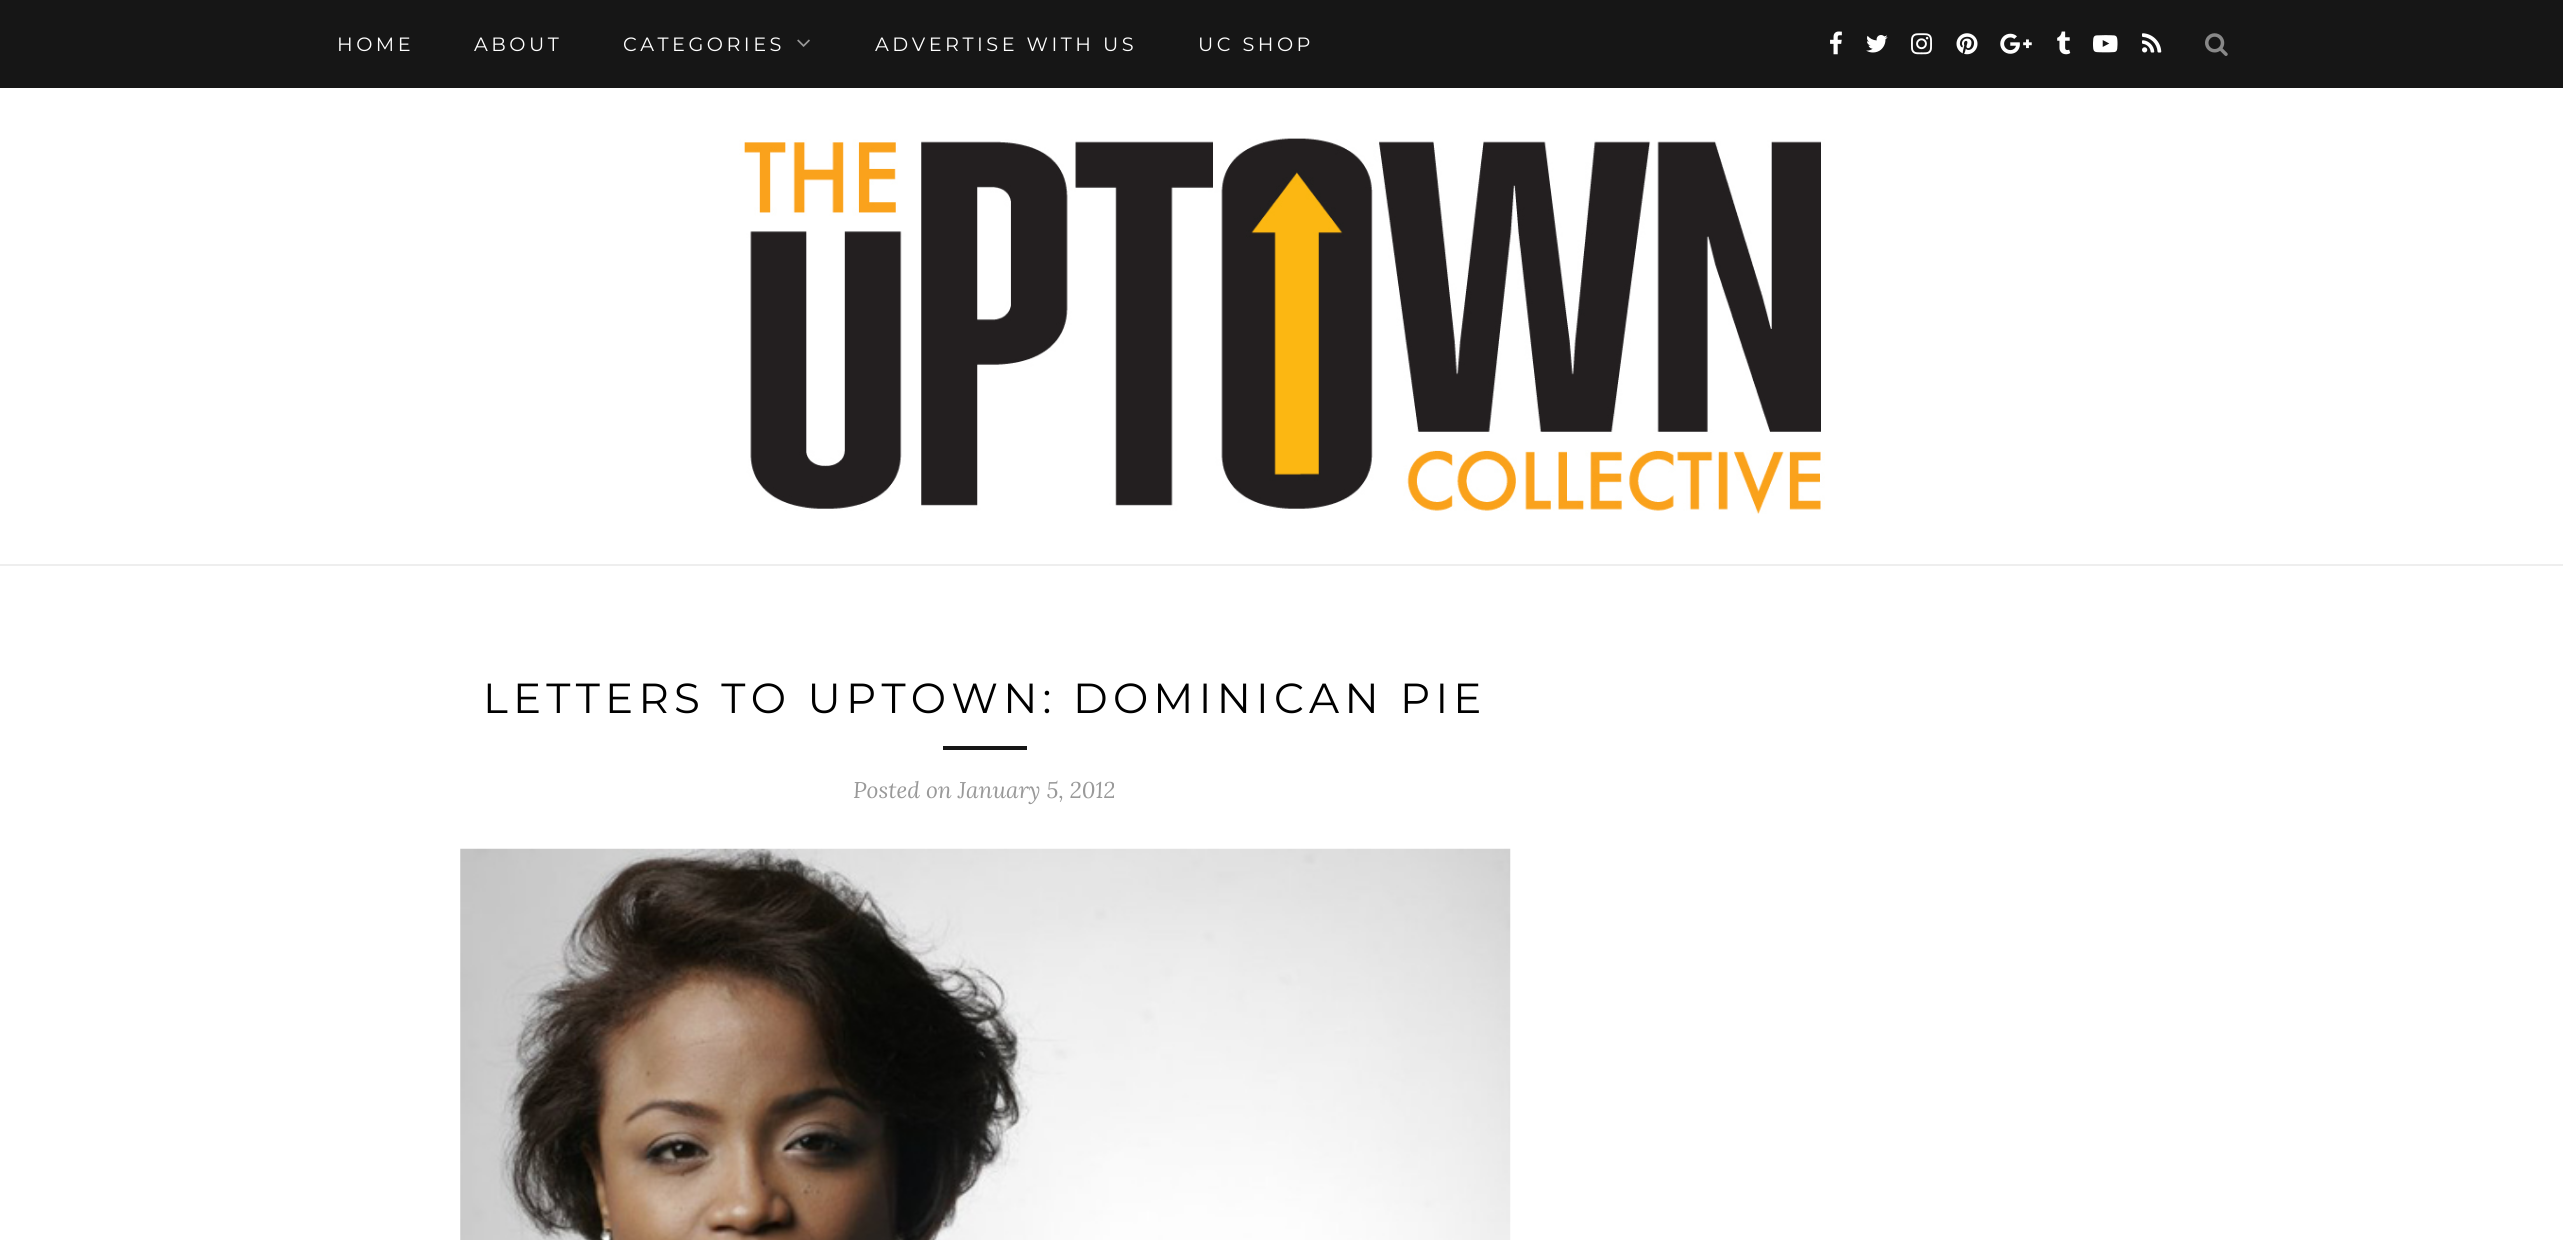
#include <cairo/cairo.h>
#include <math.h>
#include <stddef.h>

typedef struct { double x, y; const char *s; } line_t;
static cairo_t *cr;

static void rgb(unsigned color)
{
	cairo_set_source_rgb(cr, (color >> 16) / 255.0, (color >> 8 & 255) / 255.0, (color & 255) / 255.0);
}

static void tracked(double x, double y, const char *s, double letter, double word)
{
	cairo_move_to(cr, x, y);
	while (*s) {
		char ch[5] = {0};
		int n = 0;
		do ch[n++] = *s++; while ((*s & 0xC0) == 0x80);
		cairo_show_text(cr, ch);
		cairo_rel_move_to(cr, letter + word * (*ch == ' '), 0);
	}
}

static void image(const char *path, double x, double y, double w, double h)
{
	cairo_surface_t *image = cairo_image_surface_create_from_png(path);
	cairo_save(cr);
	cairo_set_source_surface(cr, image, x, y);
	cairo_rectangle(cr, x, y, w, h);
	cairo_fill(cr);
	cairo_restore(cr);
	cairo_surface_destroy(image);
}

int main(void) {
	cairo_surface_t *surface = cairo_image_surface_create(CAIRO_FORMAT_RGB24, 2563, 1240);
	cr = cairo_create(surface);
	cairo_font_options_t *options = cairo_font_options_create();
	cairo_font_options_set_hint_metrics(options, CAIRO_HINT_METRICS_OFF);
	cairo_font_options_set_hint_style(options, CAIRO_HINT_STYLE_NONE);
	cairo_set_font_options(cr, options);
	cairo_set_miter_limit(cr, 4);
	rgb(0xffffff);
	cairo_paint(cr);
	rgb(0x161616);
	cairo_rectangle(cr, 0, 0, 2563, 88);
	cairo_fill(cr);
	image("img/1.png", 797, 39, 13, 8);
	image("img/2.png", 1830, 31, 12, 24);
	image("img/3.png", 1866, 35, 22, 18);
	image("img/4.png", 1911, 33, 21, 22);
	image("img/5.png", 1956, 33, 22, 22);
	image("img/6.png", 2000, 33, 32, 21);
	image("img/7.png", 2057, 31, 14, 24);
	image("img/8.png", 2093, 35, 25, 18);
	image("img/9.png", 2142, 33, 20, 20);
	image("img/10.png", 2205, 33, 23, 23);
	rgb(0xeeeeee);
	cairo_rectangle(cr, 0, 564, 2563, 2);
	cairo_fill(cr);
	image("img/11.png", 739, 138, 1086, 376);
	rgb(0x161616);
	cairo_rectangle(cr, 943, 746, 84, 4);
	cairo_fill(cr);
	image("img/12.png", 460, 848, 1051, 392);
	cairo_select_font_face(cr, "Montserrat", CAIRO_FONT_SLANT_NORMAL, CAIRO_FONT_WEIGHT_NORMAL);
	cairo_set_font_size(cr, 19.25);
	rgb(0xffffff);
	{
		static const line_t items[] = {
			{337, 51, "HOME"},
			{474, 51, "ABOUT"},
			{623, 51, "CATEGORIES"},
			{875, 51, "ADVERTISE WITH US"},
			{1198, 51, "UC SHOP"},
		};
		for (size_t i = 0; i < sizeof items / sizeof *items; i++) {
			tracked(items[i].x, items[i].y, items[i].s, 3.5, 0);
		}
	}
	cairo_set_font_size(cr, 42);
	rgb(0x000000);
	tracked(483, 713, "LETTERS TO UPTOWN: DOMINICAN PIE", 5.25, 0);
	cairo_select_font_face(cr, "Lora", CAIRO_FONT_SLANT_ITALIC, CAIRO_FONT_WEIGHT_NORMAL);
	cairo_set_font_size(cr, 22.75);
	rgb(0x999999);
	cairo_move_to(cr, 853, 798);
	cairo_show_text(cr, "Posted on January 5, 2012");
	cairo_surface_write_to_png(surface, "page.png");
	cairo_font_options_destroy(options);
	cairo_destroy(cr);
	cairo_surface_destroy(surface);
	return 0;
}
